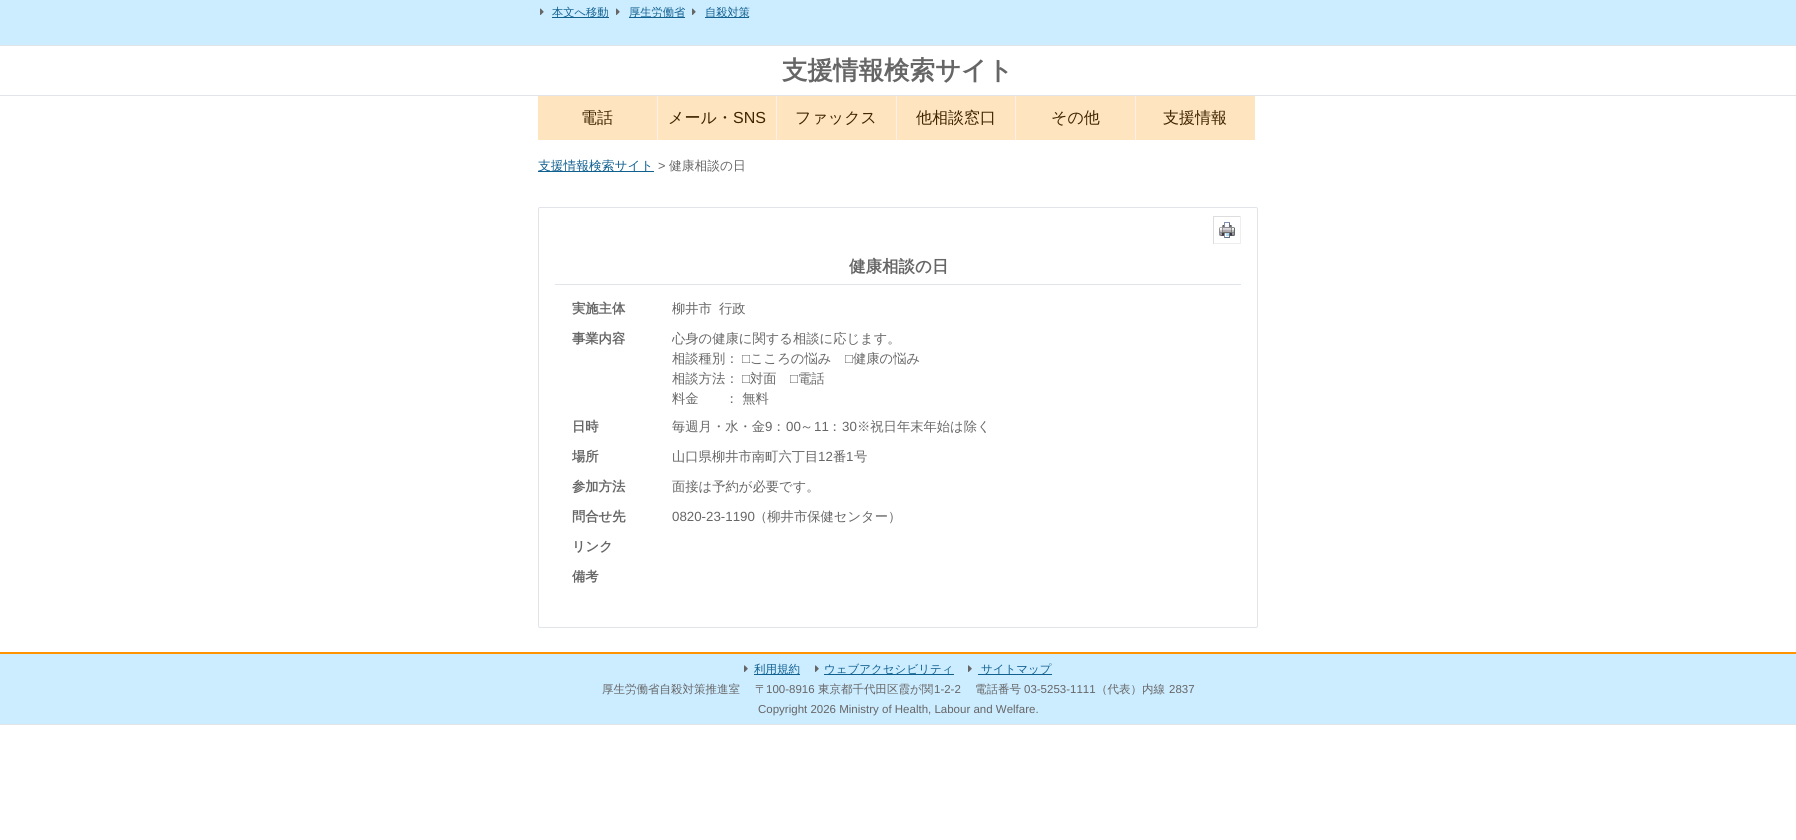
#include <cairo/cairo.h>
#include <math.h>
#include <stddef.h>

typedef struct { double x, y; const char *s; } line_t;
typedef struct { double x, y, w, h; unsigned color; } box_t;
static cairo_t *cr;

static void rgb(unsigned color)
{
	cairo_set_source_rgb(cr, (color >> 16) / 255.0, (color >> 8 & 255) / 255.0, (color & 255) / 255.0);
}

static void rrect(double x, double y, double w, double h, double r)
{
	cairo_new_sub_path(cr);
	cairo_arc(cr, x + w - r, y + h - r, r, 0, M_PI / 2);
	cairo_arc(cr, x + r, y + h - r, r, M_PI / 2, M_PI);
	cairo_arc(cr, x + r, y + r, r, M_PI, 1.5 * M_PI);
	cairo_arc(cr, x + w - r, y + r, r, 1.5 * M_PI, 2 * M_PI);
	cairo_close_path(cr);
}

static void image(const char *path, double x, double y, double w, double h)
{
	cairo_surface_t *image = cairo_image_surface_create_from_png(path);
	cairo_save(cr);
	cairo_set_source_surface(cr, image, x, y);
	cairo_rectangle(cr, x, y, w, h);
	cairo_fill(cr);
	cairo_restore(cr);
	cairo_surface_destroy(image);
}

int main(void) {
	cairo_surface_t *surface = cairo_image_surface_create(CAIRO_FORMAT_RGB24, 1796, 840);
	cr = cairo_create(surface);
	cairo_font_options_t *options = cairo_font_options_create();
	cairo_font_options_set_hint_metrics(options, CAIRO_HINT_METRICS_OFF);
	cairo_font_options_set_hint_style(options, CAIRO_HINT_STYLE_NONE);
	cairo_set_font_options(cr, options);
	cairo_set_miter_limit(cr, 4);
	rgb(0xffffff);
	cairo_paint(cr);
	rgb(0xccecff);
	cairo_rectangle(cr, 0, 0, 1796, 45);
	cairo_fill(cr);
	rgb(0xe1e4e8);
	cairo_rectangle(cr, 0, 45, 1796, 1);
	cairo_fill(cr);
	image("img/1.png", 540, 8, 4, 7);
	rgb(0x106090);
	cairo_rectangle(cr, 552, 17, 57, 1);
	cairo_fill(cr);
	image("img/1.png", 616, 8, 4, 7);
	cairo_rectangle(cr, 629, 17, 56, 1);
	cairo_fill(cr);
	image("img/1.png", 692, 8, 4, 7);
	{
		static const box_t items[] = {
			{705, 17, 44, 1, 0x106090},
			{0, 95, 1796, 1, 0xe1e4e8},
			{538, 96, 119, 44, 0xffe4c0},
			{657, 96, 1, 44, 0xffefe6},
			{658, 96, 118, 44, 0xffe4c0},
			{776, 96, 1, 44, 0xffefe6},
			{777, 96, 119, 44, 0xffe4c0},
			{896, 96, 1, 44, 0xffefe6},
			{897, 96, 118, 44, 0xffe4c0},
			{1015, 96, 1, 44, 0xffefe6},
			{1016, 96, 119, 44, 0xffe4c0},
			{1135, 96, 1, 44, 0xffefe6},
			{1136, 96, 119, 44, 0xffe4c0},
			{538, 171, 116, 1, 0x106090},
		};
		for (size_t i = 0; i < sizeof items / sizeof *items; i++) {
			rgb(items[i].color);
			cairo_rectangle(cr, items[i].x, items[i].y, items[i].w, items[i].h);
			cairo_fill(cr);
		}
	}
	rrect(538.5, 207.5, 719, 420, 1.5);
	rgb(0xe1e4e8);
	cairo_set_line_width(cr, 1);
	cairo_stroke(cr);
	{
		static const box_t items[] = {
			{1213, 216, 28, 1, 0xdddddd},
			{1240, 216, 1, 28, 0xeeeeee},
			{1213, 243, 28, 1, 0xeeeeee},
			{1213, 216, 1, 28, 0xdddddd},
		};
		for (size_t i = 0; i < sizeof items / sizeof *items; i++) {
			rgb(items[i].color);
			cairo_rectangle(cr, items[i].x, items[i].y, items[i].w, items[i].h);
			cairo_fill(cr);
		}
	}
	image("img/2.png", 1219, 222, 16, 16);
	{
		static const box_t items[] = {
			{555, 284, 686, 1, 0xe1e4e8},
			{0, 654, 1796, 70, 0xccecff},
			{0, 724, 1796, 1, 0xe1e4e8},
			{0, 652, 1796, 2, 0xff9300},
		};
		for (size_t i = 0; i < sizeof items / sizeof *items; i++) {
			rgb(items[i].color);
			cairo_rectangle(cr, items[i].x, items[i].y, items[i].w, items[i].h);
			cairo_fill(cr);
		}
	}
	image("img/3.png", 744, 665, 4, 7);
	rgb(0x106090);
	cairo_rectangle(cr, 754, 674, 46, 1);
	cairo_fill(cr);
	image("img/3.png", 815, 665, 4, 7);
	cairo_rectangle(cr, 824, 674, 130, 1);
	cairo_fill(cr);
	image("img/3.png", 968, 665, 4, 7);
	cairo_rectangle(cr, 978, 674, 74, 1);
	cairo_fill(cr);
	cairo_select_font_face(cr, "WenQuanYi Zen Hei Medium", CAIRO_FONT_SLANT_NORMAL, CAIRO_FONT_WEIGHT_NORMAL);
	cairo_set_font_size(cr, 11.25);
	{
		static const line_t items[] = {
			{552, 16, "本文へ移動"},
			{629, 16, "厚生労働省"},
			{705, 16, "自殺対策"},
		};
		for (size_t i = 0; i < sizeof items / sizeof *items; i++) {
			cairo_move_to(cr, items[i].x, items[i].y);
			cairo_show_text(cr, items[i].s);
		}
	}
	cairo_select_font_face(cr, "WenQuanYi Zen Hei", CAIRO_FONT_SLANT_NORMAL, CAIRO_FONT_WEIGHT_BOLD);
	cairo_set_font_size(cr, 25.5);
	rgb(0x666666);
	cairo_move_to(cr, 782, 79);
	cairo_show_text(cr, "支援情報検索サイト");
	cairo_select_font_face(cr, "WenQuanYi Zen Hei Medium", CAIRO_FONT_SLANT_NORMAL, CAIRO_FONT_WEIGHT_NORMAL);
	cairo_set_font_size(cr, 16);
	rgb(0x402500);
	cairo_move_to(cr, 581, 123);
	cairo_show_text(cr, "電話");
	cairo_move_to(cr, 668, 123);
	cairo_show_text(cr, "メール・");
	cairo_select_font_face(cr, "Liberation Sans", CAIRO_FONT_SLANT_NORMAL, CAIRO_FONT_WEIGHT_NORMAL);
	cairo_move_to(cr, 733, 123);
	cairo_show_text(cr, "SNS");
	cairo_select_font_face(cr, "WenQuanYi Zen Hei Medium", CAIRO_FONT_SLANT_NORMAL, CAIRO_FONT_WEIGHT_NORMAL);
	{
		static const line_t items[] = {
			{795, 123, "ファックス"},
			{916, 123, "他相談窓口"},
			{1051, 123, "その他"},
			{1163, 123, "支援情報"},
		};
		for (size_t i = 0; i < sizeof items / sizeof *items; i++) {
			cairo_move_to(cr, items[i].x, items[i].y);
			cairo_show_text(cr, items[i].s);
		}
	}
	cairo_set_font_size(cr, 12.75);
	rgb(0x106090);
	cairo_move_to(cr, 538, 170);
	cairo_show_text(cr, "支援情報検索サイト");
	cairo_select_font_face(cr, "Liberation Sans", CAIRO_FONT_SLANT_NORMAL, CAIRO_FONT_WEIGHT_NORMAL);
	rgb(0x666666);
	cairo_move_to(cr, 658, 170);
	cairo_show_text(cr, ">");
	cairo_select_font_face(cr, "WenQuanYi Zen Hei Medium", CAIRO_FONT_SLANT_NORMAL, CAIRO_FONT_WEIGHT_NORMAL);
	cairo_move_to(cr, 669, 170);
	cairo_show_text(cr, "健康相談の日");
	cairo_select_font_face(cr, "WenQuanYi Zen Hei", CAIRO_FONT_SLANT_NORMAL, CAIRO_FONT_WEIGHT_BOLD);
	cairo_set_font_size(cr, 16.5);
	cairo_move_to(cr, 849, 272);
	cairo_show_text(cr, "健康相談の日");
	cairo_set_font_size(cr, 13.3);
	cairo_move_to(cr, 572, 313);
	cairo_show_text(cr, "実施主体");
	cairo_select_font_face(cr, "WenQuanYi Zen Hei Medium", CAIRO_FONT_SLANT_NORMAL, CAIRO_FONT_WEIGHT_NORMAL);
	cairo_move_to(cr, 672, 313);
	cairo_show_text(cr, "柳井市");
	cairo_move_to(cr, 719, 313);
	cairo_show_text(cr, "行政");
	cairo_select_font_face(cr, "WenQuanYi Zen Hei", CAIRO_FONT_SLANT_NORMAL, CAIRO_FONT_WEIGHT_BOLD);
	cairo_move_to(cr, 572, 343);
	cairo_show_text(cr, "事業内容");
	cairo_select_font_face(cr, "WenQuanYi Zen Hei Medium", CAIRO_FONT_SLANT_NORMAL, CAIRO_FONT_WEIGHT_NORMAL);
	cairo_move_to(cr, 672, 343);
	cairo_show_text(cr, "心身の健康に関する相談に応じます。");
	cairo_move_to(cr, 672, 363);
	cairo_show_text(cr, "相談種別：");
	cairo_select_font_face(cr, "Liberation Sans", CAIRO_FONT_SLANT_NORMAL, CAIRO_FONT_WEIGHT_NORMAL);
	cairo_move_to(cr, 742, 363);
	cairo_show_text(cr, "□");
	cairo_select_font_face(cr, "WenQuanYi Zen Hei Medium", CAIRO_FONT_SLANT_NORMAL, CAIRO_FONT_WEIGHT_NORMAL);
	cairo_move_to(cr, 750, 363);
	cairo_show_text(cr, "こころの悩み");
	cairo_select_font_face(cr, "Liberation Sans", CAIRO_FONT_SLANT_NORMAL, CAIRO_FONT_WEIGHT_NORMAL);
	cairo_move_to(cr, 845, 363);
	cairo_show_text(cr, "□");
	cairo_select_font_face(cr, "WenQuanYi Zen Hei Medium", CAIRO_FONT_SLANT_NORMAL, CAIRO_FONT_WEIGHT_NORMAL);
	cairo_move_to(cr, 853, 363);
	cairo_show_text(cr, "健康の悩み");
	cairo_move_to(cr, 672, 383);
	cairo_show_text(cr, "相談方法：");
	cairo_select_font_face(cr, "Liberation Sans", CAIRO_FONT_SLANT_NORMAL, CAIRO_FONT_WEIGHT_NORMAL);
	cairo_move_to(cr, 742, 383);
	cairo_show_text(cr, "□");
	cairo_select_font_face(cr, "WenQuanYi Zen Hei Medium", CAIRO_FONT_SLANT_NORMAL, CAIRO_FONT_WEIGHT_NORMAL);
	cairo_move_to(cr, 750, 383);
	cairo_show_text(cr, "対面");
	cairo_select_font_face(cr, "Liberation Sans", CAIRO_FONT_SLANT_NORMAL, CAIRO_FONT_WEIGHT_NORMAL);
	cairo_move_to(cr, 790, 383);
	cairo_show_text(cr, "□");
	cairo_select_font_face(cr, "WenQuanYi Zen Hei Medium", CAIRO_FONT_SLANT_NORMAL, CAIRO_FONT_WEIGHT_NORMAL);
	{
		static const line_t items[] = {
			{798, 383, "電話"},
			{672, 403, "料金"},
			{725, 403, "： 無料"},
		};
		for (size_t i = 0; i < sizeof items / sizeof *items; i++) {
			cairo_move_to(cr, items[i].x, items[i].y);
			cairo_show_text(cr, items[i].s);
		}
	}
	cairo_select_font_face(cr, "WenQuanYi Zen Hei", CAIRO_FONT_SLANT_NORMAL, CAIRO_FONT_WEIGHT_BOLD);
	cairo_move_to(cr, 572, 431);
	cairo_show_text(cr, "日時");
	cairo_select_font_face(cr, "WenQuanYi Zen Hei Medium", CAIRO_FONT_SLANT_NORMAL, CAIRO_FONT_WEIGHT_NORMAL);
	cairo_move_to(cr, 672, 431);
	cairo_show_text(cr, "毎週月・水・金");
	cairo_select_font_face(cr, "Liberation Sans", CAIRO_FONT_SLANT_NORMAL, CAIRO_FONT_WEIGHT_NORMAL);
	cairo_move_to(cr, 765, 431);
	cairo_show_text(cr, "9");
	cairo_select_font_face(cr, "WenQuanYi Zen Hei Medium", CAIRO_FONT_SLANT_NORMAL, CAIRO_FONT_WEIGHT_NORMAL);
	cairo_move_to(cr, 772, 431);
	cairo_show_text(cr, "：");
	cairo_select_font_face(cr, "Liberation Sans", CAIRO_FONT_SLANT_NORMAL, CAIRO_FONT_WEIGHT_NORMAL);
	cairo_move_to(cr, 786, 431);
	cairo_show_text(cr, "00");
	cairo_select_font_face(cr, "WenQuanYi Zen Hei Medium", CAIRO_FONT_SLANT_NORMAL, CAIRO_FONT_WEIGHT_NORMAL);
	cairo_move_to(cr, 800, 431);
	cairo_show_text(cr, "～");
	cairo_select_font_face(cr, "Liberation Sans", CAIRO_FONT_SLANT_NORMAL, CAIRO_FONT_WEIGHT_NORMAL);
	cairo_move_to(cr, 814, 431);
	cairo_show_text(cr, "11");
	cairo_select_font_face(cr, "WenQuanYi Zen Hei Medium", CAIRO_FONT_SLANT_NORMAL, CAIRO_FONT_WEIGHT_NORMAL);
	cairo_move_to(cr, 828, 431);
	cairo_show_text(cr, "：");
	cairo_select_font_face(cr, "Liberation Sans", CAIRO_FONT_SLANT_NORMAL, CAIRO_FONT_WEIGHT_NORMAL);
	cairo_move_to(cr, 842, 431);
	cairo_show_text(cr, "30");
	cairo_select_font_face(cr, "WenQuanYi Zen Hei Medium", CAIRO_FONT_SLANT_NORMAL, CAIRO_FONT_WEIGHT_NORMAL);
	cairo_move_to(cr, 857, 431);
	cairo_show_text(cr, "※祝日年末年始は除く");
	cairo_select_font_face(cr, "WenQuanYi Zen Hei", CAIRO_FONT_SLANT_NORMAL, CAIRO_FONT_WEIGHT_BOLD);
	cairo_move_to(cr, 572, 461);
	cairo_show_text(cr, "場所");
	cairo_select_font_face(cr, "WenQuanYi Zen Hei Medium", CAIRO_FONT_SLANT_NORMAL, CAIRO_FONT_WEIGHT_NORMAL);
	cairo_move_to(cr, 672, 461);
	cairo_show_text(cr, "山口県柳井市南町六丁目");
	cairo_select_font_face(cr, "Liberation Sans", CAIRO_FONT_SLANT_NORMAL, CAIRO_FONT_WEIGHT_NORMAL);
	cairo_move_to(cr, 818, 461);
	cairo_show_text(cr, "12");
	cairo_select_font_face(cr, "WenQuanYi Zen Hei Medium", CAIRO_FONT_SLANT_NORMAL, CAIRO_FONT_WEIGHT_NORMAL);
	cairo_move_to(cr, 833, 461);
	cairo_show_text(cr, "番");
	cairo_select_font_face(cr, "Liberation Sans", CAIRO_FONT_SLANT_NORMAL, CAIRO_FONT_WEIGHT_NORMAL);
	cairo_move_to(cr, 846, 461);
	cairo_show_text(cr, "1");
	cairo_select_font_face(cr, "WenQuanYi Zen Hei Medium", CAIRO_FONT_SLANT_NORMAL, CAIRO_FONT_WEIGHT_NORMAL);
	cairo_move_to(cr, 854, 461);
	cairo_show_text(cr, "号");
	cairo_select_font_face(cr, "WenQuanYi Zen Hei", CAIRO_FONT_SLANT_NORMAL, CAIRO_FONT_WEIGHT_BOLD);
	cairo_move_to(cr, 572, 491);
	cairo_show_text(cr, "参加方法");
	cairo_select_font_face(cr, "WenQuanYi Zen Hei Medium", CAIRO_FONT_SLANT_NORMAL, CAIRO_FONT_WEIGHT_NORMAL);
	cairo_move_to(cr, 672, 491);
	cairo_show_text(cr, "面接は予約が必要です。");
	cairo_select_font_face(cr, "WenQuanYi Zen Hei", CAIRO_FONT_SLANT_NORMAL, CAIRO_FONT_WEIGHT_BOLD);
	cairo_move_to(cr, 572, 521);
	cairo_show_text(cr, "問合せ先");
	cairo_select_font_face(cr, "Liberation Sans", CAIRO_FONT_SLANT_NORMAL, CAIRO_FONT_WEIGHT_NORMAL);
	cairo_move_to(cr, 672, 521);
	cairo_show_text(cr, "0820-23-1190");
	cairo_select_font_face(cr, "WenQuanYi Zen Hei Medium", CAIRO_FONT_SLANT_NORMAL, CAIRO_FONT_WEIGHT_NORMAL);
	cairo_move_to(cr, 754, 521);
	cairo_show_text(cr, "（柳井市保健センター）");
	cairo_select_font_face(cr, "WenQuanYi Zen Hei", CAIRO_FONT_SLANT_NORMAL, CAIRO_FONT_WEIGHT_BOLD);
	cairo_move_to(cr, 572, 551);
	cairo_show_text(cr, "リンク");
	cairo_move_to(cr, 572, 581);
	cairo_show_text(cr, "備考");
	cairo_select_font_face(cr, "WenQuanYi Zen Hei Medium", CAIRO_FONT_SLANT_NORMAL, CAIRO_FONT_WEIGHT_NORMAL);
	cairo_set_font_size(cr, 11.5);
	rgb(0x106090);
	{
		static const line_t items[] = {
			{754, 673, "利用規約"},
			{824, 673, "ウェブアクセシビリティ"},
			{981, 673, "サイトマップ"},
		};
		for (size_t i = 0; i < sizeof items / sizeof *items; i++) {
			cairo_move_to(cr, items[i].x, items[i].y);
			cairo_show_text(cr, items[i].s);
		}
	}
	rgb(0x666666);
	cairo_move_to(cr, 602, 693);
	cairo_show_text(cr, "厚生労働省自殺対策推進室");
	cairo_move_to(cr, 755, 693);
	cairo_show_text(cr, "〒");
	cairo_select_font_face(cr, "Liberation Sans", CAIRO_FONT_SLANT_NORMAL, CAIRO_FONT_WEIGHT_NORMAL);
	cairo_move_to(cr, 766, 693);
	cairo_show_text(cr, "100-8916");
	cairo_select_font_face(cr, "WenQuanYi Zen Hei Medium", CAIRO_FONT_SLANT_NORMAL, CAIRO_FONT_WEIGHT_NORMAL);
	cairo_move_to(cr, 818, 693);
	cairo_show_text(cr, "東京都千代田区霞が関");
	cairo_select_font_face(cr, "Liberation Sans", CAIRO_FONT_SLANT_NORMAL, CAIRO_FONT_WEIGHT_NORMAL);
	cairo_move_to(cr, 934, 693);
	cairo_show_text(cr, "1-2-2");
	cairo_select_font_face(cr, "WenQuanYi Zen Hei Medium", CAIRO_FONT_SLANT_NORMAL, CAIRO_FONT_WEIGHT_NORMAL);
	cairo_move_to(cr, 975, 693);
	cairo_show_text(cr, "電話番号");
	cairo_select_font_face(cr, "Liberation Sans", CAIRO_FONT_SLANT_NORMAL, CAIRO_FONT_WEIGHT_NORMAL);
	cairo_move_to(cr, 1024, 693);
	cairo_show_text(cr, "03-5253-1111");
	cairo_select_font_face(cr, "WenQuanYi Zen Hei Medium", CAIRO_FONT_SLANT_NORMAL, CAIRO_FONT_WEIGHT_NORMAL);
	cairo_move_to(cr, 1096, 693);
	cairo_show_text(cr, "（代表）内線");
	cairo_select_font_face(cr, "Liberation Sans", CAIRO_FONT_SLANT_NORMAL, CAIRO_FONT_WEIGHT_NORMAL);
	cairo_move_to(cr, 1169, 693);
	cairo_show_text(cr, "2837");
	cairo_move_to(cr, 758, 713);
	cairo_show_text(cr, "Copyright 2026 Ministry of Health, Labour and Welfare.");
	cairo_surface_write_to_png(surface, "page.png");
	cairo_font_options_destroy(options);
	cairo_destroy(cr);
	cairo_surface_destroy(surface);
	return 0;
}
